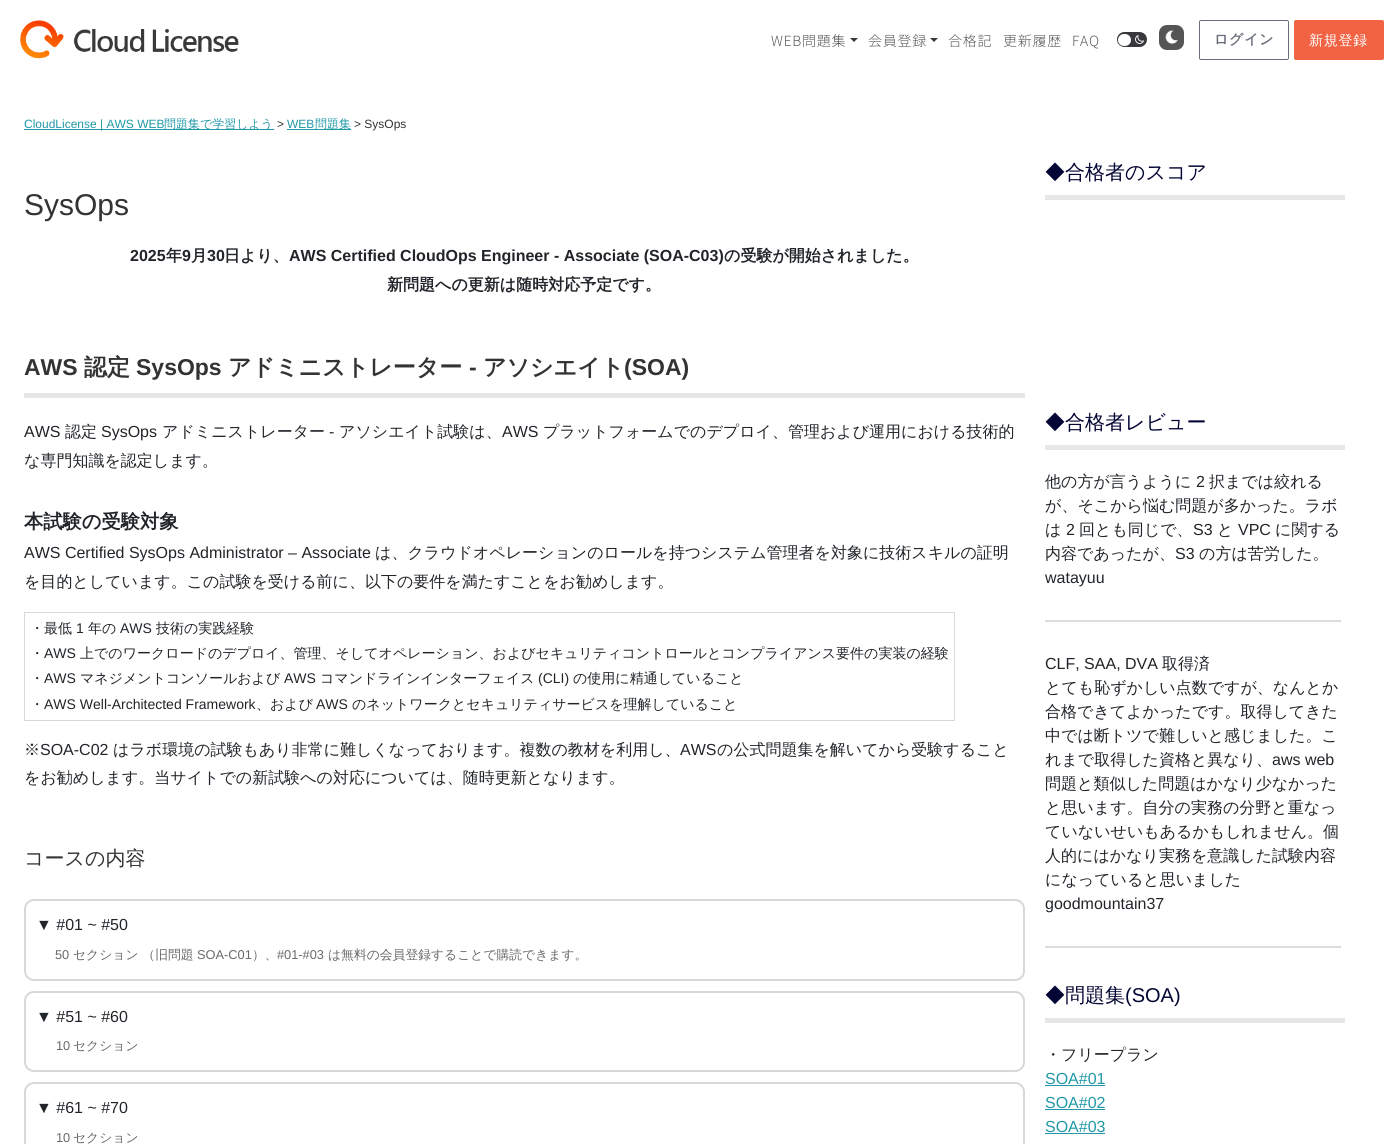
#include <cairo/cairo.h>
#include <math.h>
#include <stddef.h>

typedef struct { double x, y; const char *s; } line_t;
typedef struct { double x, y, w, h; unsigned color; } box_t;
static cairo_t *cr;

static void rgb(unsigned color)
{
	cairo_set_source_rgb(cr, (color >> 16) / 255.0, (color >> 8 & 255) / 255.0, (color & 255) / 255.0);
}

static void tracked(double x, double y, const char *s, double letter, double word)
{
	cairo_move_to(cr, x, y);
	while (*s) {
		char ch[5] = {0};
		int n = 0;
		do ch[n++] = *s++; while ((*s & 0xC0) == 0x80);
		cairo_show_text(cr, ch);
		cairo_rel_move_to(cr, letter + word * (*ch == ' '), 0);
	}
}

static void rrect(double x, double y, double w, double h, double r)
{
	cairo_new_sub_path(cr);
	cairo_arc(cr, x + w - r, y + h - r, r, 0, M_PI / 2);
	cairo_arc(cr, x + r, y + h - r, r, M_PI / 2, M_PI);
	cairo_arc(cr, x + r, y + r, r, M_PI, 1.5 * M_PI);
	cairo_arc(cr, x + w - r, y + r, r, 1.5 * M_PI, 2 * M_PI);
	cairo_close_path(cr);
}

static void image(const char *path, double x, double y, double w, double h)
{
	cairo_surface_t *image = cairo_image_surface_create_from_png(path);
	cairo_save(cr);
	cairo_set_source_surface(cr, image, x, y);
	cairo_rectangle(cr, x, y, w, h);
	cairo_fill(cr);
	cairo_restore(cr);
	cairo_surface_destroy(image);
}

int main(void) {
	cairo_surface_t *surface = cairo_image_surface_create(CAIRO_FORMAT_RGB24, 1399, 1144);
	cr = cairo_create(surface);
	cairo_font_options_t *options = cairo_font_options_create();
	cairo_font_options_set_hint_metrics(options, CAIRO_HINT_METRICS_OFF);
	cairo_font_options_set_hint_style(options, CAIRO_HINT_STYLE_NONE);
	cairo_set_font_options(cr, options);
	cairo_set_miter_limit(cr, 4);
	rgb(0xffffff);
	cairo_paint(cr);
	image("img/1.png", 19, 20, 220, 39);
	rgb(0x393939);
	cairo_new_path(cr);
	cairo_move_to(cr, 850, 38);
	cairo_line_to(cr, 858, 38);
	cairo_line_to(cr, 854, 42);
	cairo_close_path(cr);
	cairo_fill(cr);
	cairo_new_path(cr);
	cairo_move_to(cr, 930, 38);
	cairo_line_to(cr, 938, 38);
	cairo_line_to(cr, 934, 42);
	cairo_close_path(cr);
	cairo_fill(cr);
	rgb(0x39393d);
	rrect(1117, 32, 30, 15, 7.5);
	cairo_fill(cr);
	rgb(0xffffff);
	rrect(1118, 34, 13, 12, 6);
	cairo_fill(cr);
	image("img/2.png", 1135, 35, 9, 9);
	rgb(0x555555);
	rrect(1159, 25, 25, 25, 8);
	cairo_fill(cr);
	image("img/3.png", 1165, 30, 13, 14);
	rrect(1199.5, 20.5, 89, 39, 1.5);
	rgb(0x686f7a);
	cairo_set_line_width(cr, 1);
	cairo_stroke(cr);
	rgb(0xf26344);
	rrect(1294, 20, 90, 40, 2);
	cairo_fill(cr);
	{
		static const box_t items[] = {
			{24, 129, 250, 1, 0x2098a8},
			{287, 129, 64, 1, 0x2098a8},
			{24, 393, 1001, 5, 0xe7e7e7},
			{24, 612, 931, 1, 0xd8d8d8},
			{954, 612, 1, 109, 0xd8d8d8},
			{24, 720, 931, 1, 0xd8d8d8},
			{24, 612, 1, 109, 0xd8d8d8},
		};
		for (size_t i = 0; i < sizeof items / sizeof *items; i++) {
			rgb(items[i].color);
			cairo_rectangle(cr, items[i].x, items[i].y, items[i].w, items[i].h);
			cairo_fill(cr);
		}
	}
	rrect(25, 900, 999, 80, 9);
	cairo_set_line_width(cr, 2);
	cairo_stroke(cr);
	rrect(25, 992, 999, 79, 9);
	cairo_stroke(cr);
	rrect(25, 1083, 999, 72, 9);
	cairo_stroke(cr);
	{
		static const box_t items[] = {
			{1045, 195, 300, 5, 0xe7e7e7},
			{1045, 445, 300, 5, 0xe7e7e7},
			{1045, 620, 296, 2, 0xdddddd},
			{1045, 946, 296, 2, 0xdddddd},
			{1045, 1018, 300, 5, 0xe7e7e7},
			{1045, 1085, 60, 1, 0x2098a8},
			{1045, 1109, 60, 1, 0x2098a8},
			{1045, 1133, 60, 1, 0x2098a8},
		};
		for (size_t i = 0; i < sizeof items / sizeof *items; i++) {
			rgb(items[i].color);
			cairo_rectangle(cr, items[i].x, items[i].y, items[i].w, items[i].h);
			cairo_fill(cr);
		}
	}
	cairo_select_font_face(cr, "Noto Sans JP ExtraLight", CAIRO_FONT_SLANT_NORMAL, CAIRO_FONT_WEIGHT_NORMAL);
	cairo_set_font_size(cr, 14);
	rgb(0x393939);
	{
		static const line_t items[] = {
			{771, 46, "WEB問題集"},
			{868, 46, "会員登録"},
			{948, 46, "合格記"},
			{1003, 46, "更新履歴"},
			{1072, 46, "FAQ"},
		};
		for (size_t i = 0; i < sizeof items / sizeof *items; i++) {
			tracked(items[i].x, items[i].y, items[i].s, 0.75, 0);
		}
	}
	cairo_select_font_face(cr, "WenQuanYi Zen Hei", CAIRO_FONT_SLANT_NORMAL, CAIRO_FONT_WEIGHT_BOLD);
	rgb(0x686f7a);
	tracked(1214, 44, "ログイン", 0.75, 0);
	cairo_select_font_face(cr, "WenQuanYi Zen Hei Medium", CAIRO_FONT_SLANT_NORMAL, CAIRO_FONT_WEIGHT_NORMAL);
	rgb(0xffffff);
	tracked(1309, 45, "新規登録", 0.75, 0);
	cairo_select_font_face(cr, "Liberation Sans", CAIRO_FONT_SLANT_NORMAL, CAIRO_FONT_WEIGHT_NORMAL);
	cairo_set_font_size(cr, 12);
	rgb(0x2098a8);
	cairo_move_to(cr, 24, 128);
	cairo_show_text(cr, "CloudLicense | AWS WEB");
	cairo_select_font_face(cr, "WenQuanYi Zen Hei Medium", CAIRO_FONT_SLANT_NORMAL, CAIRO_FONT_WEIGHT_NORMAL);
	cairo_move_to(cr, 164, 128);
	cairo_show_text(cr, "問題集で学習しよう");
	cairo_select_font_face(cr, "Liberation Sans", CAIRO_FONT_SLANT_NORMAL, CAIRO_FONT_WEIGHT_NORMAL);
	rgb(0x333333);
	cairo_move_to(cr, 277, 128);
	cairo_show_text(cr, ">");
	rgb(0x2098a8);
	cairo_move_to(cr, 287, 128);
	cairo_show_text(cr, "WEB");
	cairo_select_font_face(cr, "WenQuanYi Zen Hei Medium", CAIRO_FONT_SLANT_NORMAL, CAIRO_FONT_WEIGHT_NORMAL);
	cairo_move_to(cr, 315, 128);
	cairo_show_text(cr, "問題集");
	cairo_select_font_face(cr, "Liberation Sans", CAIRO_FONT_SLANT_NORMAL, CAIRO_FONT_WEIGHT_NORMAL);
	rgb(0x333333);
	cairo_move_to(cr, 354, 128);
	cairo_show_text(cr, "> SysOps");
	cairo_set_font_size(cr, 30);
	cairo_move_to(cr, 24, 215);
	cairo_show_text(cr, "SysOps");
	cairo_select_font_face(cr, "Liberation Sans", CAIRO_FONT_SLANT_NORMAL, CAIRO_FONT_WEIGHT_BOLD);
	cairo_set_font_size(cr, 16);
	rgb(0x212529);
	cairo_move_to(cr, 130, 261);
	cairo_show_text(cr, "2025");
	cairo_select_font_face(cr, "WenQuanYi Zen Hei", CAIRO_FONT_SLANT_NORMAL, CAIRO_FONT_WEIGHT_BOLD);
	cairo_move_to(cr, 166, 261);
	cairo_show_text(cr, "年");
	cairo_select_font_face(cr, "Liberation Sans", CAIRO_FONT_SLANT_NORMAL, CAIRO_FONT_WEIGHT_BOLD);
	cairo_move_to(cr, 182, 261);
	cairo_show_text(cr, "9");
	cairo_select_font_face(cr, "WenQuanYi Zen Hei", CAIRO_FONT_SLANT_NORMAL, CAIRO_FONT_WEIGHT_BOLD);
	cairo_move_to(cr, 191, 261);
	cairo_show_text(cr, "月");
	cairo_select_font_face(cr, "Liberation Sans", CAIRO_FONT_SLANT_NORMAL, CAIRO_FONT_WEIGHT_BOLD);
	cairo_move_to(cr, 207, 261);
	cairo_show_text(cr, "30");
	cairo_select_font_face(cr, "WenQuanYi Zen Hei", CAIRO_FONT_SLANT_NORMAL, CAIRO_FONT_WEIGHT_BOLD);
	cairo_move_to(cr, 224, 261);
	cairo_show_text(cr, "日より、");
	cairo_select_font_face(cr, "Liberation Sans", CAIRO_FONT_SLANT_NORMAL, CAIRO_FONT_WEIGHT_BOLD);
	cairo_move_to(cr, 289, 261);
	cairo_show_text(cr, "AWS Certified CloudOps Engineer - Associate (SOA-C03)");
	cairo_select_font_face(cr, "WenQuanYi Zen Hei", CAIRO_FONT_SLANT_NORMAL, CAIRO_FONT_WEIGHT_BOLD);
	cairo_move_to(cr, 724, 261);
	cairo_show_text(cr, "の受験が開始されました。");
	cairo_move_to(cr, 387, 290);
	cairo_show_text(cr, "新問題への更新は随時対応予定です。");
	cairo_select_font_face(cr, "Liberation Sans", CAIRO_FONT_SLANT_NORMAL, CAIRO_FONT_WEIGHT_BOLD);
	cairo_set_font_size(cr, 23);
	rgb(0x333333);
	cairo_move_to(cr, 24, 375);
	cairo_show_text(cr, "AWS");
	cairo_select_font_face(cr, "WenQuanYi Zen Hei", CAIRO_FONT_SLANT_NORMAL, CAIRO_FONT_WEIGHT_BOLD);
	cairo_move_to(cr, 84, 375);
	cairo_show_text(cr, "認定");
	cairo_select_font_face(cr, "Liberation Sans", CAIRO_FONT_SLANT_NORMAL, CAIRO_FONT_WEIGHT_BOLD);
	cairo_move_to(cr, 136, 375);
	cairo_show_text(cr, "SysOps");
	cairo_select_font_face(cr, "WenQuanYi Zen Hei", CAIRO_FONT_SLANT_NORMAL, CAIRO_FONT_WEIGHT_BOLD);
	cairo_move_to(cr, 228, 375);
	cairo_show_text(cr, "アドミニストレーター");
	cairo_select_font_face(cr, "Liberation Sans", CAIRO_FONT_SLANT_NORMAL, CAIRO_FONT_WEIGHT_BOLD);
	cairo_move_to(cr, 469, 375);
	cairo_show_text(cr, "-");
	cairo_select_font_face(cr, "WenQuanYi Zen Hei", CAIRO_FONT_SLANT_NORMAL, CAIRO_FONT_WEIGHT_BOLD);
	cairo_move_to(cr, 483, 375);
	cairo_show_text(cr, "アソシエイト");
	cairo_select_font_face(cr, "Liberation Sans", CAIRO_FONT_SLANT_NORMAL, CAIRO_FONT_WEIGHT_BOLD);
	cairo_move_to(cr, 624, 375);
	cairo_show_text(cr, "(SOA)");
	cairo_select_font_face(cr, "Liberation Sans", CAIRO_FONT_SLANT_NORMAL, CAIRO_FONT_WEIGHT_NORMAL);
	cairo_set_font_size(cr, 16);
	rgb(0x212529);
	cairo_move_to(cr, 24, 437);
	cairo_show_text(cr, "AWS");
	cairo_select_font_face(cr, "WenQuanYi Zen Hei Medium", CAIRO_FONT_SLANT_NORMAL, CAIRO_FONT_WEIGHT_NORMAL);
	cairo_move_to(cr, 65, 437);
	cairo_show_text(cr, "認定");
	cairo_select_font_face(cr, "Liberation Sans", CAIRO_FONT_SLANT_NORMAL, CAIRO_FONT_WEIGHT_NORMAL);
	cairo_move_to(cr, 101, 437);
	cairo_show_text(cr, "SysOps");
	cairo_select_font_face(cr, "WenQuanYi Zen Hei Medium", CAIRO_FONT_SLANT_NORMAL, CAIRO_FONT_WEIGHT_NORMAL);
	cairo_move_to(cr, 162, 437);
	cairo_show_text(cr, "アドミニストレーター");
	cairo_select_font_face(cr, "Liberation Sans", CAIRO_FONT_SLANT_NORMAL, CAIRO_FONT_WEIGHT_NORMAL);
	cairo_move_to(cr, 329, 437);
	cairo_show_text(cr, "-");
	cairo_select_font_face(cr, "WenQuanYi Zen Hei Medium", CAIRO_FONT_SLANT_NORMAL, CAIRO_FONT_WEIGHT_NORMAL);
	cairo_move_to(cr, 339, 437);
	cairo_show_text(cr, "アソシエイト試験は、");
	cairo_select_font_face(cr, "Liberation Sans", CAIRO_FONT_SLANT_NORMAL, CAIRO_FONT_WEIGHT_NORMAL);
	cairo_move_to(cr, 502, 437);
	cairo_show_text(cr, "AWS");
	cairo_select_font_face(cr, "WenQuanYi Zen Hei Medium", CAIRO_FONT_SLANT_NORMAL, CAIRO_FONT_WEIGHT_NORMAL);
	cairo_move_to(cr, 543, 437);
	cairo_show_text(cr, "プラットフォームでのデプロイ、管理および運用における技術的");
	cairo_move_to(cr, 24, 466);
	cairo_show_text(cr, "な専門知識を認定します。");
	cairo_select_font_face(cr, "WenQuanYi Zen Hei", CAIRO_FONT_SLANT_NORMAL, CAIRO_FONT_WEIGHT_BOLD);
	cairo_set_font_size(cr, 19.25);
	cairo_move_to(cr, 24, 528);
	cairo_show_text(cr, "本試験の受験対象");
	cairo_select_font_face(cr, "Liberation Sans", CAIRO_FONT_SLANT_NORMAL, CAIRO_FONT_WEIGHT_NORMAL);
	cairo_set_font_size(cr, 16);
	cairo_move_to(cr, 24, 558);
	cairo_show_text(cr, "AWS Certified SysOps Administrator – Associate");
	cairo_select_font_face(cr, "WenQuanYi Zen Hei Medium", CAIRO_FONT_SLANT_NORMAL, CAIRO_FONT_WEIGHT_NORMAL);
	cairo_move_to(cr, 375, 558);
	cairo_show_text(cr, "は、クラウドオペレーションのロールを持つシステム管理者を対象に技術スキルの証明");
	cairo_move_to(cr, 24, 587);
	cairo_show_text(cr, "を目的としています。この試験を受ける前に、以下の要件を満たすことをお勧めします。");
	cairo_set_font_size(cr, 14);
	cairo_move_to(cr, 30, 633);
	cairo_show_text(cr, "・最低");
	cairo_select_font_face(cr, "Liberation Sans", CAIRO_FONT_SLANT_NORMAL, CAIRO_FONT_WEIGHT_NORMAL);
	cairo_move_to(cr, 76, 633);
	cairo_show_text(cr, "1");
	cairo_select_font_face(cr, "WenQuanYi Zen Hei Medium", CAIRO_FONT_SLANT_NORMAL, CAIRO_FONT_WEIGHT_NORMAL);
	cairo_move_to(cr, 88, 633);
	cairo_show_text(cr, "年の");
	cairo_select_font_face(cr, "Liberation Sans", CAIRO_FONT_SLANT_NORMAL, CAIRO_FONT_WEIGHT_NORMAL);
	cairo_move_to(cr, 120, 633);
	cairo_show_text(cr, "AWS");
	cairo_select_font_face(cr, "WenQuanYi Zen Hei Medium", CAIRO_FONT_SLANT_NORMAL, CAIRO_FONT_WEIGHT_NORMAL);
	cairo_move_to(cr, 156, 633);
	cairo_show_text(cr, "技術の実践経験");
	cairo_move_to(cr, 30, 658);
	cairo_show_text(cr, "・");
	cairo_select_font_face(cr, "Liberation Sans", CAIRO_FONT_SLANT_NORMAL, CAIRO_FONT_WEIGHT_NORMAL);
	cairo_move_to(cr, 44, 658);
	cairo_show_text(cr, "AWS");
	cairo_select_font_face(cr, "WenQuanYi Zen Hei Medium", CAIRO_FONT_SLANT_NORMAL, CAIRO_FONT_WEIGHT_NORMAL);
	cairo_move_to(cr, 80, 658);
	cairo_show_text(cr, "上でのワークロードのデプロイ、管理、そしてオペレーション、およびセキュリティコントロールとコンプライアンス要件の実装の経験");
	cairo_move_to(cr, 30, 683);
	cairo_show_text(cr, "・");
	cairo_select_font_face(cr, "Liberation Sans", CAIRO_FONT_SLANT_NORMAL, CAIRO_FONT_WEIGHT_NORMAL);
	cairo_move_to(cr, 44, 683);
	cairo_show_text(cr, "AWS");
	cairo_select_font_face(cr, "WenQuanYi Zen Hei Medium", CAIRO_FONT_SLANT_NORMAL, CAIRO_FONT_WEIGHT_NORMAL);
	cairo_move_to(cr, 80, 683);
	cairo_show_text(cr, "マネジメントコンソールおよび");
	cairo_select_font_face(cr, "Liberation Sans", CAIRO_FONT_SLANT_NORMAL, CAIRO_FONT_WEIGHT_NORMAL);
	cairo_move_to(cr, 284, 683);
	cairo_show_text(cr, "AWS");
	cairo_select_font_face(cr, "WenQuanYi Zen Hei Medium", CAIRO_FONT_SLANT_NORMAL, CAIRO_FONT_WEIGHT_NORMAL);
	cairo_move_to(cr, 320, 683);
	cairo_show_text(cr, "コマンドラインインターフェイス");
	cairo_select_font_face(cr, "Liberation Sans", CAIRO_FONT_SLANT_NORMAL, CAIRO_FONT_WEIGHT_NORMAL);
	cairo_move_to(cr, 538, 683);
	cairo_show_text(cr, "(CLI)");
	cairo_select_font_face(cr, "WenQuanYi Zen Hei Medium", CAIRO_FONT_SLANT_NORMAL, CAIRO_FONT_WEIGHT_NORMAL);
	cairo_move_to(cr, 573, 683);
	cairo_show_text(cr, "の使用に精通していること");
	cairo_move_to(cr, 30, 709);
	cairo_show_text(cr, "・");
	cairo_select_font_face(cr, "Liberation Sans", CAIRO_FONT_SLANT_NORMAL, CAIRO_FONT_WEIGHT_NORMAL);
	cairo_move_to(cr, 44, 709);
	cairo_show_text(cr, "AWS Well-Architected Framework");
	cairo_select_font_face(cr, "WenQuanYi Zen Hei Medium", CAIRO_FONT_SLANT_NORMAL, CAIRO_FONT_WEIGHT_NORMAL);
	cairo_move_to(cr, 256, 709);
	cairo_show_text(cr, "、および");
	cairo_select_font_face(cr, "Liberation Sans", CAIRO_FONT_SLANT_NORMAL, CAIRO_FONT_WEIGHT_NORMAL);
	cairo_move_to(cr, 316, 709);
	cairo_show_text(cr, "AWS");
	cairo_select_font_face(cr, "WenQuanYi Zen Hei Medium", CAIRO_FONT_SLANT_NORMAL, CAIRO_FONT_WEIGHT_NORMAL);
	cairo_move_to(cr, 352, 709);
	cairo_show_text(cr, "のネットワークとセキュリティサービスを理解していること");
	cairo_set_font_size(cr, 16);
	cairo_move_to(cr, 24, 755);
	cairo_show_text(cr, "※");
	cairo_select_font_face(cr, "Liberation Sans", CAIRO_FONT_SLANT_NORMAL, CAIRO_FONT_WEIGHT_NORMAL);
	cairo_move_to(cr, 40, 755);
	cairo_show_text(cr, "SOA-C02");
	cairo_select_font_face(cr, "WenQuanYi Zen Hei Medium", CAIRO_FONT_SLANT_NORMAL, CAIRO_FONT_WEIGHT_NORMAL);
	cairo_move_to(cr, 113, 755);
	cairo_show_text(cr, "はラボ環境の試験もあり非常に難しくなっております。複数の教材を利用し、");
	cairo_select_font_face(cr, "Liberation Sans", CAIRO_FONT_SLANT_NORMAL, CAIRO_FONT_WEIGHT_NORMAL);
	cairo_move_to(cr, 680, 755);
	cairo_show_text(cr, "AWS");
	cairo_select_font_face(cr, "WenQuanYi Zen Hei Medium", CAIRO_FONT_SLANT_NORMAL, CAIRO_FONT_WEIGHT_NORMAL);
	cairo_move_to(cr, 717, 755);
	cairo_show_text(cr, "の公式問題集を解いてから受験すること");
	cairo_move_to(cr, 24, 783);
	cairo_show_text(cr, "をお勧めします。当サイトでの新試験への対応については、随時更新となります。");
	cairo_set_font_size(cr, 20);
	rgb(0x333333);
	cairo_move_to(cr, 24, 865);
	cairo_show_text(cr, "コースの内容");
	cairo_select_font_face(cr, "Liberation Sans", CAIRO_FONT_SLANT_NORMAL, CAIRO_FONT_WEIGHT_NORMAL);
	cairo_set_font_size(cr, 16);
	rgb(0x212529);
	cairo_move_to(cr, 36, 930);
	cairo_show_text(cr, "▼ #01 ~ #50");
	cairo_set_font_size(cr, 12.8);
	rgb(0x696969);
	cairo_move_to(cr, 55, 959);
	cairo_show_text(cr, "50");
	cairo_select_font_face(cr, "WenQuanYi Zen Hei Medium", CAIRO_FONT_SLANT_NORMAL, CAIRO_FONT_WEIGHT_NORMAL);
	cairo_move_to(cr, 73, 959);
	cairo_show_text(cr, "セクション （旧問題");
	cairo_select_font_face(cr, "Liberation Sans", CAIRO_FONT_SLANT_NORMAL, CAIRO_FONT_WEIGHT_NORMAL);
	cairo_move_to(cr, 197, 959);
	cairo_show_text(cr, "SOA-C01");
	cairo_select_font_face(cr, "WenQuanYi Zen Hei Medium", CAIRO_FONT_SLANT_NORMAL, CAIRO_FONT_WEIGHT_NORMAL);
	cairo_move_to(cr, 252, 959);
	cairo_show_text(cr, "）、");
	cairo_select_font_face(cr, "Liberation Sans", CAIRO_FONT_SLANT_NORMAL, CAIRO_FONT_WEIGHT_NORMAL);
	cairo_move_to(cr, 277, 959);
	cairo_show_text(cr, "#01-#03");
	cairo_select_font_face(cr, "WenQuanYi Zen Hei Medium", CAIRO_FONT_SLANT_NORMAL, CAIRO_FONT_WEIGHT_NORMAL);
	cairo_move_to(cr, 328, 959);
	cairo_show_text(cr, "は無料の会員登録することで購読できます。");
	cairo_select_font_face(cr, "Liberation Sans", CAIRO_FONT_SLANT_NORMAL, CAIRO_FONT_WEIGHT_NORMAL);
	cairo_set_font_size(cr, 16);
	rgb(0x212529);
	cairo_move_to(cr, 36, 1022);
	cairo_show_text(cr, "▼ #51 ~ #60");
	cairo_set_font_size(cr, 12.8);
	rgb(0x696969);
	cairo_move_to(cr, 56, 1050);
	cairo_show_text(cr, "10");
	cairo_select_font_face(cr, "WenQuanYi Zen Hei Medium", CAIRO_FONT_SLANT_NORMAL, CAIRO_FONT_WEIGHT_NORMAL);
	cairo_move_to(cr, 73, 1050);
	cairo_show_text(cr, "セクション");
	cairo_select_font_face(cr, "Liberation Sans", CAIRO_FONT_SLANT_NORMAL, CAIRO_FONT_WEIGHT_NORMAL);
	cairo_set_font_size(cr, 16);
	rgb(0x212529);
	cairo_move_to(cr, 36, 1113);
	cairo_show_text(cr, "▼ #61 ~ #70");
	cairo_set_font_size(cr, 12.8);
	rgb(0x696969);
	cairo_move_to(cr, 56, 1142);
	cairo_show_text(cr, "10");
	cairo_select_font_face(cr, "WenQuanYi Zen Hei Medium", CAIRO_FONT_SLANT_NORMAL, CAIRO_FONT_WEIGHT_NORMAL);
	cairo_move_to(cr, 73, 1142);
	cairo_show_text(cr, "セクション");
	cairo_set_font_size(cr, 20);
	rgb(0x030534);
	cairo_move_to(cr, 1045, 179);
	cairo_show_text(cr, "◆合格者のスコア");
	cairo_move_to(cr, 1045, 429);
	cairo_show_text(cr, "◆合格者レビュー");
	cairo_set_font_size(cr, 16);
	rgb(0x212529);
	cairo_move_to(cr, 1045, 487);
	cairo_show_text(cr, "他の方が言うように");
	cairo_select_font_face(cr, "Liberation Sans", CAIRO_FONT_SLANT_NORMAL, CAIRO_FONT_WEIGHT_NORMAL);
	cairo_move_to(cr, 1196, 487);
	cairo_show_text(cr, "2");
	cairo_select_font_face(cr, "WenQuanYi Zen Hei Medium", CAIRO_FONT_SLANT_NORMAL, CAIRO_FONT_WEIGHT_NORMAL);
	{
		static const line_t items[] = {
			{1209, 487, "択までは絞れる"},
			{1045, 511, "が、そこから悩む問題が多かった。ラボ"},
			{1045, 535, "は"},
		};
		for (size_t i = 0; i < sizeof items / sizeof *items; i++) {
			cairo_move_to(cr, items[i].x, items[i].y);
			cairo_show_text(cr, items[i].s);
		}
	}
	cairo_select_font_face(cr, "Liberation Sans", CAIRO_FONT_SLANT_NORMAL, CAIRO_FONT_WEIGHT_NORMAL);
	cairo_move_to(cr, 1066, 535);
	cairo_show_text(cr, "2");
	cairo_select_font_face(cr, "WenQuanYi Zen Hei Medium", CAIRO_FONT_SLANT_NORMAL, CAIRO_FONT_WEIGHT_NORMAL);
	cairo_move_to(cr, 1079, 535);
	cairo_show_text(cr, "回とも同じで、");
	cairo_select_font_face(cr, "Liberation Sans", CAIRO_FONT_SLANT_NORMAL, CAIRO_FONT_WEIGHT_NORMAL);
	cairo_move_to(cr, 1193, 535);
	cairo_show_text(cr, "S3");
	cairo_select_font_face(cr, "WenQuanYi Zen Hei Medium", CAIRO_FONT_SLANT_NORMAL, CAIRO_FONT_WEIGHT_NORMAL);
	cairo_move_to(cr, 1217, 535);
	cairo_show_text(cr, "と");
	cairo_select_font_face(cr, "Liberation Sans", CAIRO_FONT_SLANT_NORMAL, CAIRO_FONT_WEIGHT_NORMAL);
	cairo_move_to(cr, 1238, 535);
	cairo_show_text(cr, "VPC");
	cairo_select_font_face(cr, "WenQuanYi Zen Hei Medium", CAIRO_FONT_SLANT_NORMAL, CAIRO_FONT_WEIGHT_NORMAL);
	cairo_move_to(cr, 1275, 535);
	cairo_show_text(cr, "に関する");
	cairo_move_to(cr, 1045, 559);
	cairo_show_text(cr, "内容であったが、");
	cairo_select_font_face(cr, "Liberation Sans", CAIRO_FONT_SLANT_NORMAL, CAIRO_FONT_WEIGHT_NORMAL);
	cairo_move_to(cr, 1175, 559);
	cairo_show_text(cr, "S3");
	cairo_select_font_face(cr, "WenQuanYi Zen Hei Medium", CAIRO_FONT_SLANT_NORMAL, CAIRO_FONT_WEIGHT_NORMAL);
	cairo_move_to(cr, 1199, 559);
	cairo_show_text(cr, "の方は苦労した。");
	cairo_select_font_face(cr, "Liberation Sans", CAIRO_FONT_SLANT_NORMAL, CAIRO_FONT_WEIGHT_NORMAL);
	cairo_move_to(cr, 1045, 583);
	cairo_show_text(cr, "watayuu");
	cairo_move_to(cr, 1045, 669);
	cairo_show_text(cr, "CLF, SAA, DVA");
	cairo_select_font_face(cr, "WenQuanYi Zen Hei Medium", CAIRO_FONT_SLANT_NORMAL, CAIRO_FONT_WEIGHT_NORMAL);
	{
		static const line_t items[] = {
			{1162, 669, "取得済"},
			{1045, 693, "とても恥ずかしい点数ですが、なんとか"},
			{1045, 717, "合格できてよかったです。取得してきた"},
			{1045, 741, "中では断トツで難しいと感じました。こ"},
			{1045, 765, "れまで取得した資格と異なり、"},
		};
		for (size_t i = 0; i < sizeof items / sizeof *items; i++) {
			cairo_move_to(cr, items[i].x, items[i].y);
			cairo_show_text(cr, items[i].s);
		}
	}
	cairo_select_font_face(cr, "Liberation Sans", CAIRO_FONT_SLANT_NORMAL, CAIRO_FONT_WEIGHT_NORMAL);
	cairo_move_to(cr, 1272, 765);
	cairo_show_text(cr, "aws web");
	cairo_select_font_face(cr, "WenQuanYi Zen Hei Medium", CAIRO_FONT_SLANT_NORMAL, CAIRO_FONT_WEIGHT_NORMAL);
	{
		static const line_t items[] = {
			{1045, 789, "問題と類似した問題はかなり少なかった"},
			{1045, 813, "と思います。自分の実務の分野と重なっ"},
			{1045, 837, "ていないせいもあるかもしれません。個"},
			{1045, 861, "人的にはかなり実務を意識した試験内容"},
			{1045, 885, "になっていると思いました"},
		};
		for (size_t i = 0; i < sizeof items / sizeof *items; i++) {
			cairo_move_to(cr, items[i].x, items[i].y);
			cairo_show_text(cr, items[i].s);
		}
	}
	cairo_select_font_face(cr, "Liberation Sans", CAIRO_FONT_SLANT_NORMAL, CAIRO_FONT_WEIGHT_NORMAL);
	cairo_move_to(cr, 1045, 909);
	cairo_show_text(cr, "goodmountain37");
	cairo_select_font_face(cr, "WenQuanYi Zen Hei Medium", CAIRO_FONT_SLANT_NORMAL, CAIRO_FONT_WEIGHT_NORMAL);
	cairo_set_font_size(cr, 20);
	rgb(0x030534);
	cairo_move_to(cr, 1045, 1002);
	cairo_show_text(cr, "◆問題集");
	cairo_select_font_face(cr, "Liberation Sans", CAIRO_FONT_SLANT_NORMAL, CAIRO_FONT_WEIGHT_NORMAL);
	cairo_move_to(cr, 1125, 1002);
	cairo_show_text(cr, "(SOA)");
	cairo_select_font_face(cr, "WenQuanYi Zen Hei Medium", CAIRO_FONT_SLANT_NORMAL, CAIRO_FONT_WEIGHT_NORMAL);
	cairo_set_font_size(cr, 16);
	rgb(0x212529);
	cairo_move_to(cr, 1045, 1060);
	cairo_show_text(cr, "・フリープラン");
	cairo_select_font_face(cr, "Liberation Sans", CAIRO_FONT_SLANT_NORMAL, CAIRO_FONT_WEIGHT_NORMAL);
	rgb(0x2098a8);
	{
		static const line_t items[] = {
			{1045, 1084, "SOA#01"},
			{1045, 1108, "SOA#02"},
			{1045, 1132, "SOA#03"},
		};
		for (size_t i = 0; i < sizeof items / sizeof *items; i++) {
			cairo_move_to(cr, items[i].x, items[i].y);
			cairo_show_text(cr, items[i].s);
		}
	}
	cairo_surface_write_to_png(surface, "page.png");
	cairo_font_options_destroy(options);
	cairo_destroy(cr);
	cairo_surface_destroy(surface);
	return 0;
}
